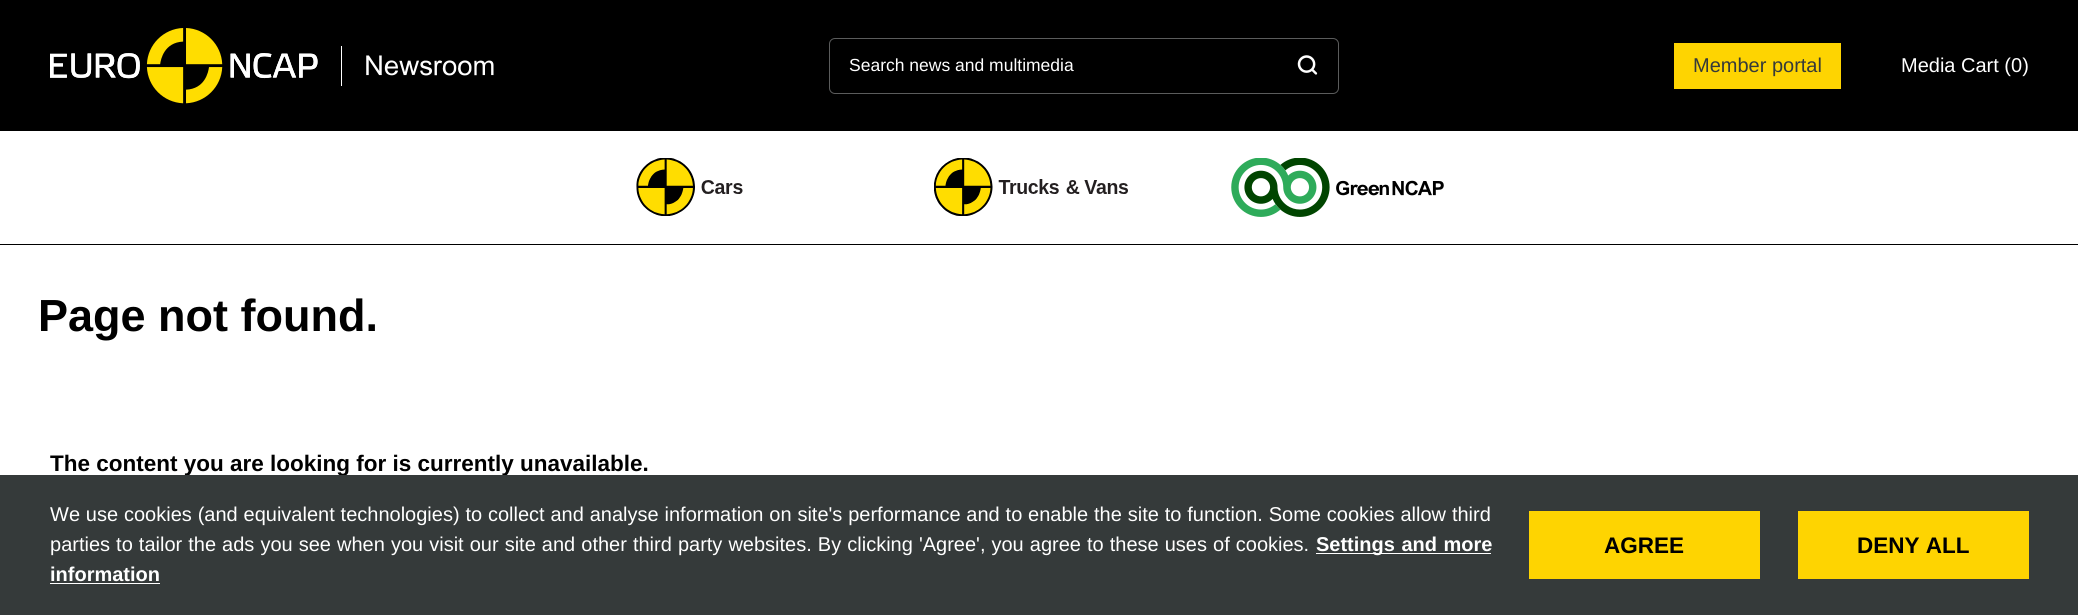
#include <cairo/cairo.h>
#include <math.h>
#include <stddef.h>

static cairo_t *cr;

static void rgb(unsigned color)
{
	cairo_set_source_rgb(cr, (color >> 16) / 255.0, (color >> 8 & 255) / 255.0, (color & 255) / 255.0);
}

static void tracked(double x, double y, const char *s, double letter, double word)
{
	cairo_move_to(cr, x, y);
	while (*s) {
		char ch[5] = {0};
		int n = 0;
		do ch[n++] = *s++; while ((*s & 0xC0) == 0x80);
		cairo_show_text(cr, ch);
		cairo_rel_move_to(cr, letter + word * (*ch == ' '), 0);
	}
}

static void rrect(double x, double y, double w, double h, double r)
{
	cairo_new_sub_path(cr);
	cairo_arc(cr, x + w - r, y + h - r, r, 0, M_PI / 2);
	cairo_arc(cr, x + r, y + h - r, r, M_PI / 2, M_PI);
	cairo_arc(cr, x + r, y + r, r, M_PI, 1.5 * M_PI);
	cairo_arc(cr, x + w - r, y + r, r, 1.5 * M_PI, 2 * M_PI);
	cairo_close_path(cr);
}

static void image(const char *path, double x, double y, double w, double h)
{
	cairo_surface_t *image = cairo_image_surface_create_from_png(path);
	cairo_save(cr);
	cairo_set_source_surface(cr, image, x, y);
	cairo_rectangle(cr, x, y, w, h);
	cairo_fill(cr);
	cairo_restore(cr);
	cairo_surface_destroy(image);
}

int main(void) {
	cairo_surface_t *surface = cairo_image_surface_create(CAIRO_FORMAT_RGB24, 2078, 615);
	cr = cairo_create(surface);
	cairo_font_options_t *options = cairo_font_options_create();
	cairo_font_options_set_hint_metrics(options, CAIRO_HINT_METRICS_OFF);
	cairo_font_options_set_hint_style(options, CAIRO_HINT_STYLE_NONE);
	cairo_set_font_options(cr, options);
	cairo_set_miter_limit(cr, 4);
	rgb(0xffffff);
	cairo_paint(cr);
	rgb(0x000000);
	cairo_rectangle(cr, 0, 0, 2078, 245);
	cairo_fill(cr);
	image("img/1.png", 50, 28, 444, 76);
	rrect(829.5, 38.5, 509, 55, 5.5);
	rgb(0x5b5c5c);
	cairo_set_line_width(cr, 1);
	cairo_stroke(cr);
	image("img/2.png", 1297, 55, 21, 20);
	rgb(0xfed401);
	cairo_rectangle(cr, 1674, 43, 167, 46);
	cairo_fill(cr);
	rgb(0xffffff);
	cairo_rectangle(cr, 0, 131, 2078, 113);
	cairo_fill(cr);
	image("img/3.png", 636, 158, 107, 58);
	image("img/4.png", 934, 158, 194, 58);
	image("img/5.png", 1231, 158, 213, 59);
	cairo_select_font_face(cr, "Liberation Sans", CAIRO_FONT_SLANT_NORMAL, CAIRO_FONT_WEIGHT_NORMAL);
	cairo_set_font_size(cr, 17.5);
	cairo_move_to(cr, 849, 71);
	cairo_show_text(cr, "Search news and multimedia");
	cairo_set_font_size(cr, 20);
	rgb(0x353a3a);
	cairo_move_to(cr, 1693, 72);
	cairo_show_text(cr, "Member portal");
	rgb(0xffffff);
	cairo_move_to(cr, 1901, 72);
	cairo_show_text(cr, "Media Cart (0)");
	cairo_select_font_face(cr, "Liberation Sans", CAIRO_FONT_SLANT_NORMAL, CAIRO_FONT_WEIGHT_BOLD);
	cairo_set_font_size(cr, 45);
	rgb(0x000000);
	cairo_move_to(cr, 38, 331);
	cairo_show_text(cr, "Page not found.");
	cairo_set_font_size(cr, 22.5);
	cairo_move_to(cr, 50, 471);
	cairo_show_text(cr, "The content you are looking for is currently unavailable.");
	rgb(0x353a3a);
	cairo_rectangle(cr, 0, 475, 2078, 140);
	cairo_fill(cr);
	cairo_select_font_face(cr, "Liberation Sans", CAIRO_FONT_SLANT_NORMAL, CAIRO_FONT_WEIGHT_NORMAL);
	cairo_set_font_size(cr, 20);
	rgb(0xffffff);
	tracked(50, 521, "We use cookies (and equivalent technologies) to collect and analyse information on site's performance and to enable the site to function. Some cookies allow third", 0, 0.3);
	tracked(50, 551, "parties to tailor the ads you see when you visit our site and other third party websites. By clicking 'Agree', you agree to these uses of cookies.", 0, 0.5);
	cairo_rectangle(cr, 1316, 553, 175, 1);
	cairo_fill(cr);
	cairo_select_font_face(cr, "Liberation Sans", CAIRO_FONT_SLANT_NORMAL, CAIRO_FONT_WEIGHT_BOLD);
	tracked(1316, 551, "Settings and more", 0, 1);
	cairo_move_to(cr, 50, 581);
	cairo_show_text(cr, "information");
	cairo_rectangle(cr, 50, 583, 110, 1);
	cairo_fill(cr);
	rgb(0xfed401);
	cairo_rectangle(cr, 1529, 511, 231, 68);
	cairo_fill(cr);
	cairo_set_font_size(cr, 22.5);
	rgb(0x000000);
	cairo_move_to(cr, 1604, 553);
	cairo_show_text(cr, "AGREE");
	rgb(0xfed401);
	cairo_rectangle(cr, 1798, 511, 231, 68);
	cairo_fill(cr);
	rgb(0x000000);
	cairo_move_to(cr, 1857, 553);
	cairo_show_text(cr, "DENY ALL");
	cairo_surface_write_to_png(surface, "page.png");
	cairo_font_options_destroy(options);
	cairo_destroy(cr);
	cairo_surface_destroy(surface);
	return 0;
}
